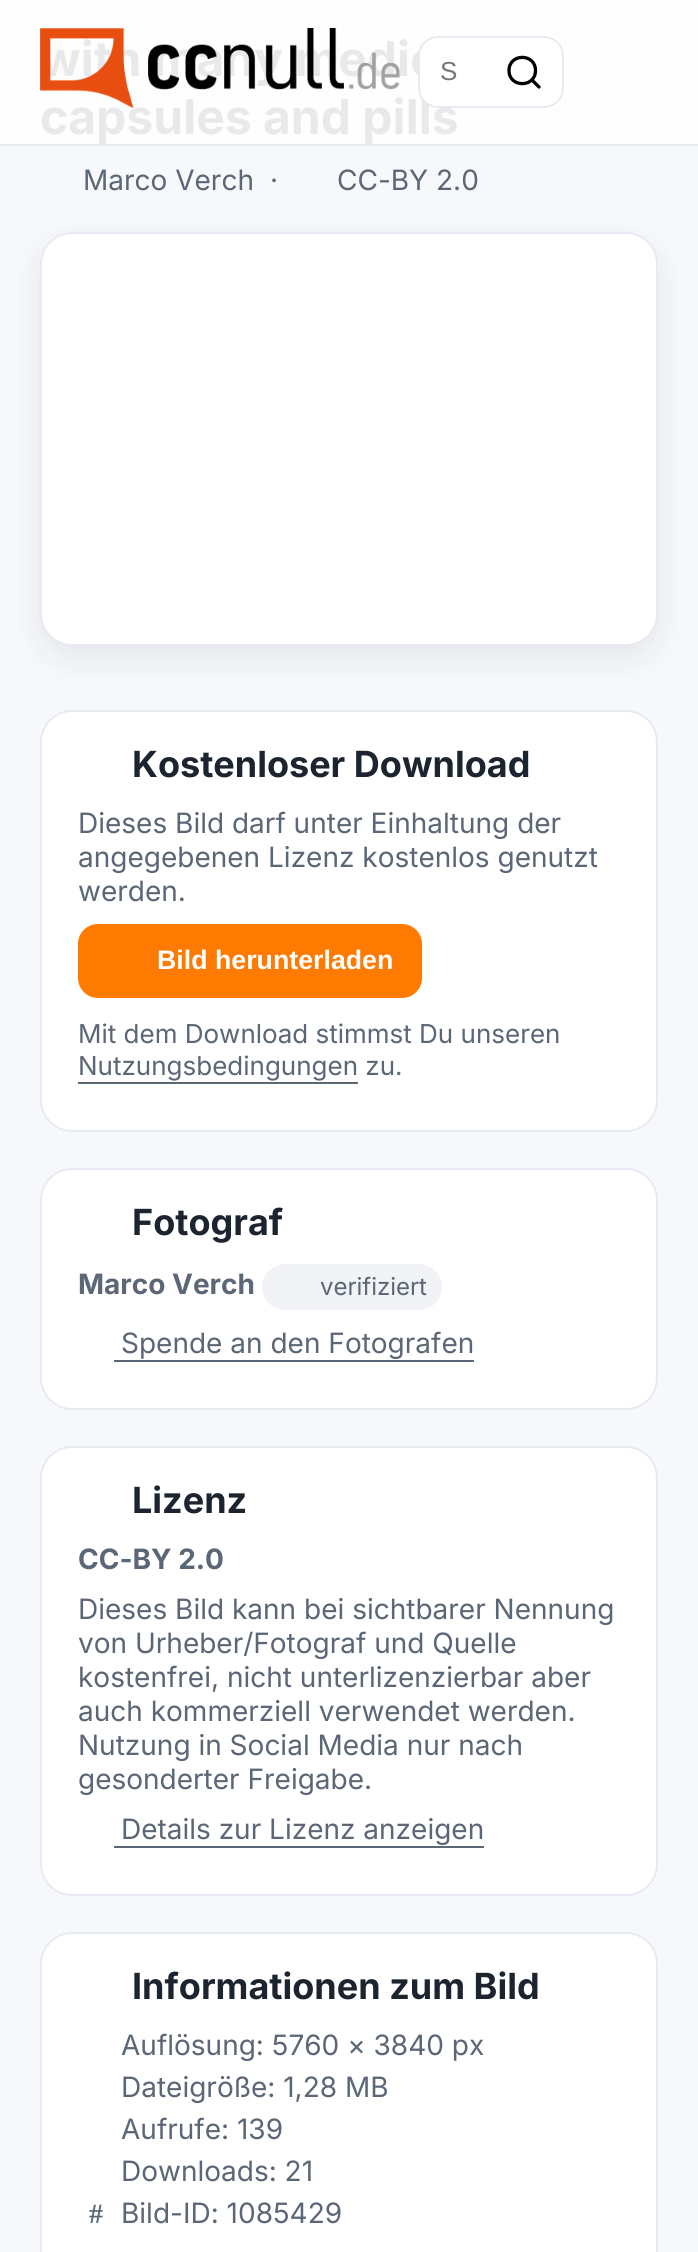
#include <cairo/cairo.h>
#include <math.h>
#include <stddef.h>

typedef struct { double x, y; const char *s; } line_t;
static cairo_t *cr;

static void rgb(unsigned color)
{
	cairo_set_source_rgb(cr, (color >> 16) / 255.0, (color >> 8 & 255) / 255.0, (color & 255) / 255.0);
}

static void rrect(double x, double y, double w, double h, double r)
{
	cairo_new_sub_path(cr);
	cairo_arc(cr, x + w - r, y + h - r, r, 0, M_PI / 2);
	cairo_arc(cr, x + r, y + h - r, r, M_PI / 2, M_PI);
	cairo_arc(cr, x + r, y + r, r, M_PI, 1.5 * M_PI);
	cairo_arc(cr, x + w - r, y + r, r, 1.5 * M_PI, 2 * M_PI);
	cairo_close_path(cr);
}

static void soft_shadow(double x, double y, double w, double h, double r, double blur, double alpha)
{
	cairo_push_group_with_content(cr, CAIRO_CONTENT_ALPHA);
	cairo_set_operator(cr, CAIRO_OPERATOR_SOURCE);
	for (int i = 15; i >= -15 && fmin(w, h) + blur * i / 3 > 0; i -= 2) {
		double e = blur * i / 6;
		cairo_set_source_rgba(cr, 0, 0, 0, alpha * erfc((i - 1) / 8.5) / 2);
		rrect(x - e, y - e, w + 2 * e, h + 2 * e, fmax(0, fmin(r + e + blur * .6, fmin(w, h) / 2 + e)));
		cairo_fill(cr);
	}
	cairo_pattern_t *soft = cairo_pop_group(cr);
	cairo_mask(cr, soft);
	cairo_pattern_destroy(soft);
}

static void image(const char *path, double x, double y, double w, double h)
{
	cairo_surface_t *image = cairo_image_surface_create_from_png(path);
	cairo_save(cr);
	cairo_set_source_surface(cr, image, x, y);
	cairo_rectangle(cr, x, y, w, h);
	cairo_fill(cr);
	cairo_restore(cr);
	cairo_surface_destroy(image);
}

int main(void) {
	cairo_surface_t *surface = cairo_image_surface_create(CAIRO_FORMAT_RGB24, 698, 2252);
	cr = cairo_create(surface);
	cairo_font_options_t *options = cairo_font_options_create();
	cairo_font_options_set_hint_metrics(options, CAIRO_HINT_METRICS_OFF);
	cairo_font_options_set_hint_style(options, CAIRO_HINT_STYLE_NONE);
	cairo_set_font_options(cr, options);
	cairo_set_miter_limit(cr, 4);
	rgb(0xf7f8fb);
	cairo_paint(cr);
	rgb(0xfefeff);
	cairo_rectangle(cr, 0, 0, 698, 144);
	cairo_fill(cr);
	rgb(0x0f172a);
	soft_shadow(40, 244, 618, 414, 32, 16, 0.08);
	rgb(0xffffff);
	rrect(41, 233, 616, 412, 31);
	cairo_fill_preserve(cr);
	rgb(0xe7eaf0);
	cairo_stroke(cr);
	rgb(0xffffff);
	rrect(41, 711, 616, 420, 31);
	cairo_fill_preserve(cr);
	rgb(0xe7eaf0);
	cairo_stroke(cr);
	rgb(0xff7a00);
	rrect(78, 924, 344, 74, 20);
	cairo_fill(cr);
	rgb(0x5b6676);
	cairo_rectangle(cr, 78, 1082, 280, 2);
	cairo_fill(cr);
	rgb(0xffffff);
	rrect(41, 1169, 616, 240, 31);
	cairo_fill_preserve(cr);
	rgb(0xe7eaf0);
	cairo_stroke(cr);
	rgb(0xf1f3f7);
	rrect(262, 1264, 180, 46, 23);
	cairo_fill(cr);
	rgb(0x5b6676);
	cairo_rectangle(cr, 114, 1360, 360, 2);
	cairo_fill(cr);
	rgb(0xffffff);
	rrect(41, 1447, 616, 448, 31);
	cairo_fill_preserve(cr);
	rgb(0xe7eaf0);
	cairo_stroke(cr);
	rgb(0x5b6676);
	cairo_rectangle(cr, 114, 1846, 370, 2);
	cairo_fill(cr);
	rgb(0xffffff);
	rrect(41, 1933, 616, 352, 31);
	cairo_fill_preserve(cr);
	rgb(0xe7eaf0);
	cairo_stroke(cr);
	cairo_rectangle(cr, 0, 144, 698, 2);
	cairo_fill(cr);
	cairo_select_font_face(cr, "Inter", CAIRO_FONT_SLANT_NORMAL, CAIRO_FONT_WEIGHT_BOLD);
	cairo_set_font_size(cr, 48);
	rgb(0xe8e9ea);
	cairo_move_to(cr, 40, 76);
	cairo_show_text(cr, "with many medic");
	cairo_move_to(cr, 40, 134);
	cairo_show_text(cr, "capsules and pills");
	cairo_select_font_face(cr, "Inter", CAIRO_FONT_SLANT_NORMAL, CAIRO_FONT_WEIGHT_NORMAL);
	cairo_set_font_size(cr, 28);
	rgb(0x5b6676);
	{
		static const line_t items[] = {
			{83, 190, "Marco Verch"},
			{270, 190, "·"},
			{337, 190, "CC-BY 2.0"},
		};
		for (size_t i = 0; i < sizeof items / sizeof *items; i++) {
			cairo_move_to(cr, items[i].x, items[i].y);
			cairo_show_text(cr, items[i].s);
		}
	}
	cairo_select_font_face(cr, "Inter", CAIRO_FONT_SLANT_NORMAL, CAIRO_FONT_WEIGHT_BOLD);
	cairo_set_font_size(cr, 36);
	rgb(0x1c2430);
	cairo_move_to(cr, 132, 777);
	cairo_show_text(cr, "Kostenloser Download");
	cairo_select_font_face(cr, "Inter", CAIRO_FONT_SLANT_NORMAL, CAIRO_FONT_WEIGHT_NORMAL);
	cairo_set_font_size(cr, 28);
	rgb(0x5b6676);
	{
		static const line_t items[] = {
			{78, 833, "Dieses Bild darf unter Einhaltung der"},
			{78, 867, "angegebenen Lizenz kostenlos genutzt"},
			{78, 901, "werden."},
		};
		for (size_t i = 0; i < sizeof items / sizeof *items; i++) {
			cairo_move_to(cr, items[i].x, items[i].y);
			cairo_show_text(cr, items[i].s);
		}
	}
	cairo_select_font_face(cr, "Liberation Sans", CAIRO_FONT_SLANT_NORMAL, CAIRO_FONT_WEIGHT_BOLD);
	cairo_set_font_size(cr, 26.75);
	rgb(0xffffff);
	cairo_move_to(cr, 157, 969);
	cairo_show_text(cr, "Bild herunterladen");
	cairo_select_font_face(cr, "Inter", CAIRO_FONT_SLANT_NORMAL, CAIRO_FONT_WEIGHT_NORMAL);
	cairo_set_font_size(cr, 26);
	rgb(0x5b6676);
	cairo_move_to(cr, 78, 1043);
	cairo_show_text(cr, "Mit dem Download stimmst Du unseren");
	cairo_move_to(cr, 78, 1075);
	cairo_show_text(cr, "Nutzungsbedingungen zu.");
	cairo_select_font_face(cr, "Inter", CAIRO_FONT_SLANT_NORMAL, CAIRO_FONT_WEIGHT_BOLD);
	cairo_set_font_size(cr, 36);
	rgb(0x1c2430);
	cairo_move_to(cr, 132, 1235);
	cairo_show_text(cr, "Fotograf");
	cairo_set_font_size(cr, 28);
	rgb(0x5b6676);
	cairo_move_to(cr, 78, 1294);
	cairo_show_text(cr, "Marco Verch");
	cairo_select_font_face(cr, "Inter", CAIRO_FONT_SLANT_NORMAL, CAIRO_FONT_WEIGHT_NORMAL);
	cairo_set_font_size(cr, 24);
	cairo_move_to(cr, 320, 1295);
	cairo_show_text(cr, "verifiziert");
	cairo_set_font_size(cr, 28);
	cairo_move_to(cr, 121, 1353);
	cairo_show_text(cr, "Spende an den Fotografen");
	cairo_select_font_face(cr, "Inter", CAIRO_FONT_SLANT_NORMAL, CAIRO_FONT_WEIGHT_BOLD);
	cairo_set_font_size(cr, 36);
	rgb(0x1c2430);
	cairo_move_to(cr, 132, 1513);
	cairo_show_text(cr, "Lizenz");
	cairo_set_font_size(cr, 28);
	rgb(0x5b6676);
	cairo_move_to(cr, 78, 1569);
	cairo_show_text(cr, "CC-BY 2.0");
	cairo_select_font_face(cr, "Inter", CAIRO_FONT_SLANT_NORMAL, CAIRO_FONT_WEIGHT_NORMAL);
	{
		static const line_t items[] = {
			{78, 1619, "Dieses Bild kann bei sichtbarer Nennung"},
			{78, 1653, "von Urheber/Fotograf und Quelle"},
			{78, 1687, "kostenfrei, nicht unterlizenzierbar aber"},
			{78, 1721, "auch kommerziell verwendet werden."},
			{78, 1755, "Nutzung in Social Media nur nach"},
			{78, 1789, "gesonderter Freigabe."},
			{121, 1839, "Details zur Lizenz anzeigen"},
		};
		for (size_t i = 0; i < sizeof items / sizeof *items; i++) {
			cairo_move_to(cr, items[i].x, items[i].y);
			cairo_show_text(cr, items[i].s);
		}
	}
	cairo_select_font_face(cr, "Inter", CAIRO_FONT_SLANT_NORMAL, CAIRO_FONT_WEIGHT_BOLD);
	cairo_set_font_size(cr, 36);
	rgb(0x1c2430);
	cairo_move_to(cr, 132, 1999);
	cairo_show_text(cr, "Informationen zum Bild");
	cairo_select_font_face(cr, "Inter", CAIRO_FONT_SLANT_NORMAL, CAIRO_FONT_WEIGHT_NORMAL);
	cairo_set_font_size(cr, 28);
	rgb(0x5b6676);
	{
		static const line_t items[] = {
			{121, 2055, "Auflösung: 5760 × 3840 px"},
			{121, 2097, "Dateigröße: 1,28 MB"},
			{121, 2139, "Aufrufe: 139"},
			{121, 2181, "Downloads: 21"},
		};
		for (size_t i = 0; i < sizeof items / sizeof *items; i++) {
			cairo_move_to(cr, items[i].x, items[i].y);
			cairo_show_text(cr, items[i].s);
		}
	}
	cairo_select_font_face(cr, "Liberation Serif", CAIRO_FONT_SLANT_NORMAL, CAIRO_FONT_WEIGHT_BOLD);
	cairo_move_to(cr, 89, 2223);
	cairo_show_text(cr, "#");
	cairo_select_font_face(cr, "Inter", CAIRO_FONT_SLANT_NORMAL, CAIRO_FONT_WEIGHT_NORMAL);
	cairo_move_to(cr, 121, 2223);
	cairo_show_text(cr, "Bild-ID: 1085429");
	image("img/1.png", 40, 28, 360, 80);
	rgb(0xffffff);
	rrect(419, 37, 144, 70, 19);
	cairo_fill_preserve(cr);
	rgb(0xe7eaf0);
	cairo_stroke(cr);
	cairo_select_font_face(cr, "Liberation Sans", CAIRO_FONT_SLANT_NORMAL, CAIRO_FONT_WEIGHT_NORMAL);
	cairo_set_font_size(cr, 26);
	rgb(0x757575);
	cairo_move_to(cr, 440, 80);
	cairo_show_text(cr, "S");
	cairo_new_path(cr);
	cairo_move_to(cr, 539, 87);
	cairo_line_to(cr, 532, 80);
	cairo_move_to(cr, 535.5, 70.5);
	cairo_curve_to(cr, 535.5, 88, 509, 88, 509, 70.5);
	cairo_curve_to(cr, 509, 53, 535.5, 53, 535.5, 70.5);
	cairo_close_path(cr);
	rgb(0x000000);
	cairo_set_line_width(cr, 3.3);
	cairo_set_line_cap(cr, CAIRO_LINE_CAP_ROUND);
	cairo_set_line_join(cr, CAIRO_LINE_JOIN_ROUND);
	cairo_stroke(cr);
	cairo_surface_write_to_png(surface, "page.png");
	cairo_font_options_destroy(options);
	cairo_destroy(cr);
	cairo_surface_destroy(surface);
	return 0;
}
